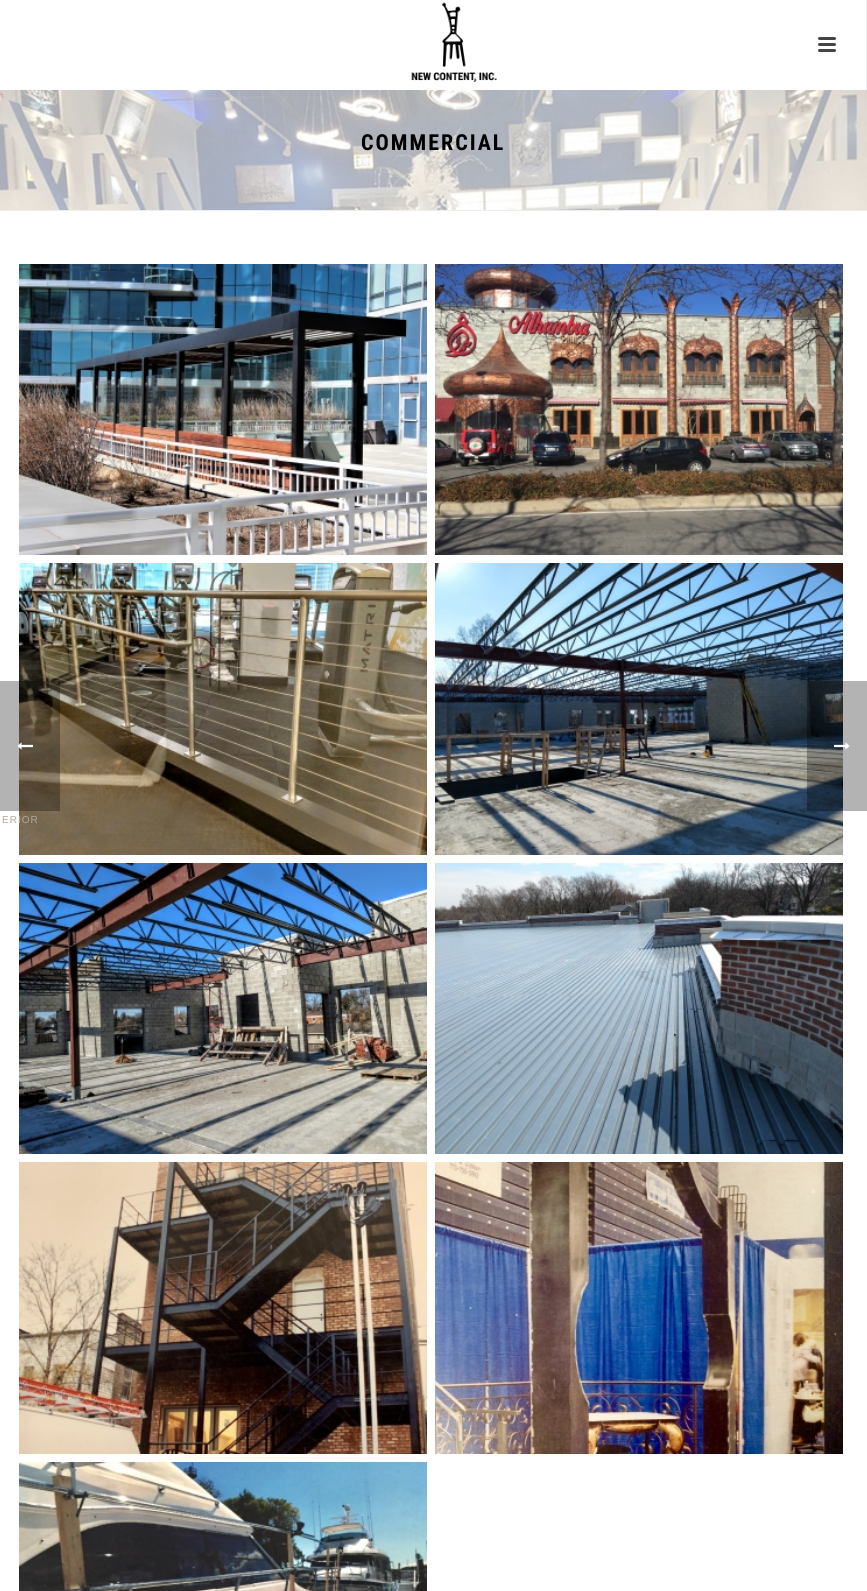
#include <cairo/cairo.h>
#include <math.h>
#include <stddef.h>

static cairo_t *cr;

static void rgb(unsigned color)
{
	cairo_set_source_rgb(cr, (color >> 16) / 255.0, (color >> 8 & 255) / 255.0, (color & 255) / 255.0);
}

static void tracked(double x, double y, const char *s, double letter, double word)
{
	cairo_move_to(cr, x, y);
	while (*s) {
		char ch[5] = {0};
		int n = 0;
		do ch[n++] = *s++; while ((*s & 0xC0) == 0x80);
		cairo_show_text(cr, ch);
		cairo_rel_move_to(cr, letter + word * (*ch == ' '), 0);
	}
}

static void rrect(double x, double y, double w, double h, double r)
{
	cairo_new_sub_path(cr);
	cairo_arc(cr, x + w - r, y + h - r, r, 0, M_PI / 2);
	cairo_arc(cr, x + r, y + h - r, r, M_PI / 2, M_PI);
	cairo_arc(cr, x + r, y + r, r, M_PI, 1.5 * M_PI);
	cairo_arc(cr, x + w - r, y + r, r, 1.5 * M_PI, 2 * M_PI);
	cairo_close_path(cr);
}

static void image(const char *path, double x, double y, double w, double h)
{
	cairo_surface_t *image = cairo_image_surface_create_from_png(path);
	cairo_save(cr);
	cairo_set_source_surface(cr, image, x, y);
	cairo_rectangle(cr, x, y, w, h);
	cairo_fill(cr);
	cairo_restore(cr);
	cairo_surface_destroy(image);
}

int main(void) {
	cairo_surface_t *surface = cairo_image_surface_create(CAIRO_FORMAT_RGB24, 867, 1591);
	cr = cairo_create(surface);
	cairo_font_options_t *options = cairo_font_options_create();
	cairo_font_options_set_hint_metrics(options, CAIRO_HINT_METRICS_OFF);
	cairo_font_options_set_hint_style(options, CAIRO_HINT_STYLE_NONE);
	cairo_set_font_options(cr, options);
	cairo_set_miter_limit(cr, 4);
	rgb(0xffffff);
	cairo_paint(cr);
	image("img/1.png", 0, 90, 867, 120);
	rgb(0xededed);
	cairo_rectangle(cr, 0, 210, 867, 1);
	cairo_fill(cr);
	cairo_rectangle(cr, 866, 0, 1, 90);
	cairo_fill(cr);
	image("img/2.png", 411, 2, 86, 80);
	rgb(0x444444);
	rrect(818, 37, 18, 3, 1.5);
	cairo_fill(cr);
	rrect(818, 43, 18, 3, 1.5);
	cairo_fill(cr);
	rrect(818, 49, 18, 3, 1.5);
	cairo_fill(cr);
	image("img/3.png", 19, 264, 408, 291);
	image("img/4.png", 435, 264, 408, 291);
	image("img/5.png", 19, 563, 408, 292);
	image("img/6.png", 435, 563, 408, 292);
	image("img/7.png", 19, 863, 408, 291);
	image("img/8.png", 435, 863, 408, 291);
	image("img/9.png", 19, 1162, 408, 292);
	image("img/10.png", 435, 1162, 408, 292);
	image("img/11.png", 19, 1462, 408, 129);
	cairo_set_source_rgba(cr, 0, 0, 0, 0.3);
	cairo_rectangle(cr, 807, 681, 60, 130);
	cairo_fill(cr);
	image("img/12.png", 834, 742, 16, 8);
	cairo_rectangle(cr, 0, 681, 60, 130);
	cairo_fill(cr);
	image("img/13.png", 17, 742, 16, 8);
	cairo_select_font_face(cr, "Roboto Condensed", CAIRO_FONT_SLANT_NORMAL, CAIRO_FONT_WEIGHT_BOLD);
	cairo_set_font_size(cr, 22);
	rgb(0x000000);
	tracked(361, 150, "COMMERCIAL", 2, 0);
	cairo_select_font_face(cr, "Liberation Sans", CAIRO_FONT_SLANT_NORMAL, CAIRO_FONT_WEIGHT_NORMAL);
	cairo_set_font_size(cr, 10);
	rgb(0xb2a99a);
	tracked(2, 823, "ERIOR", 1, 0);
	cairo_surface_write_to_png(surface, "page.png");
	cairo_font_options_destroy(options);
	cairo_destroy(cr);
	cairo_surface_destroy(surface);
	return 0;
}
